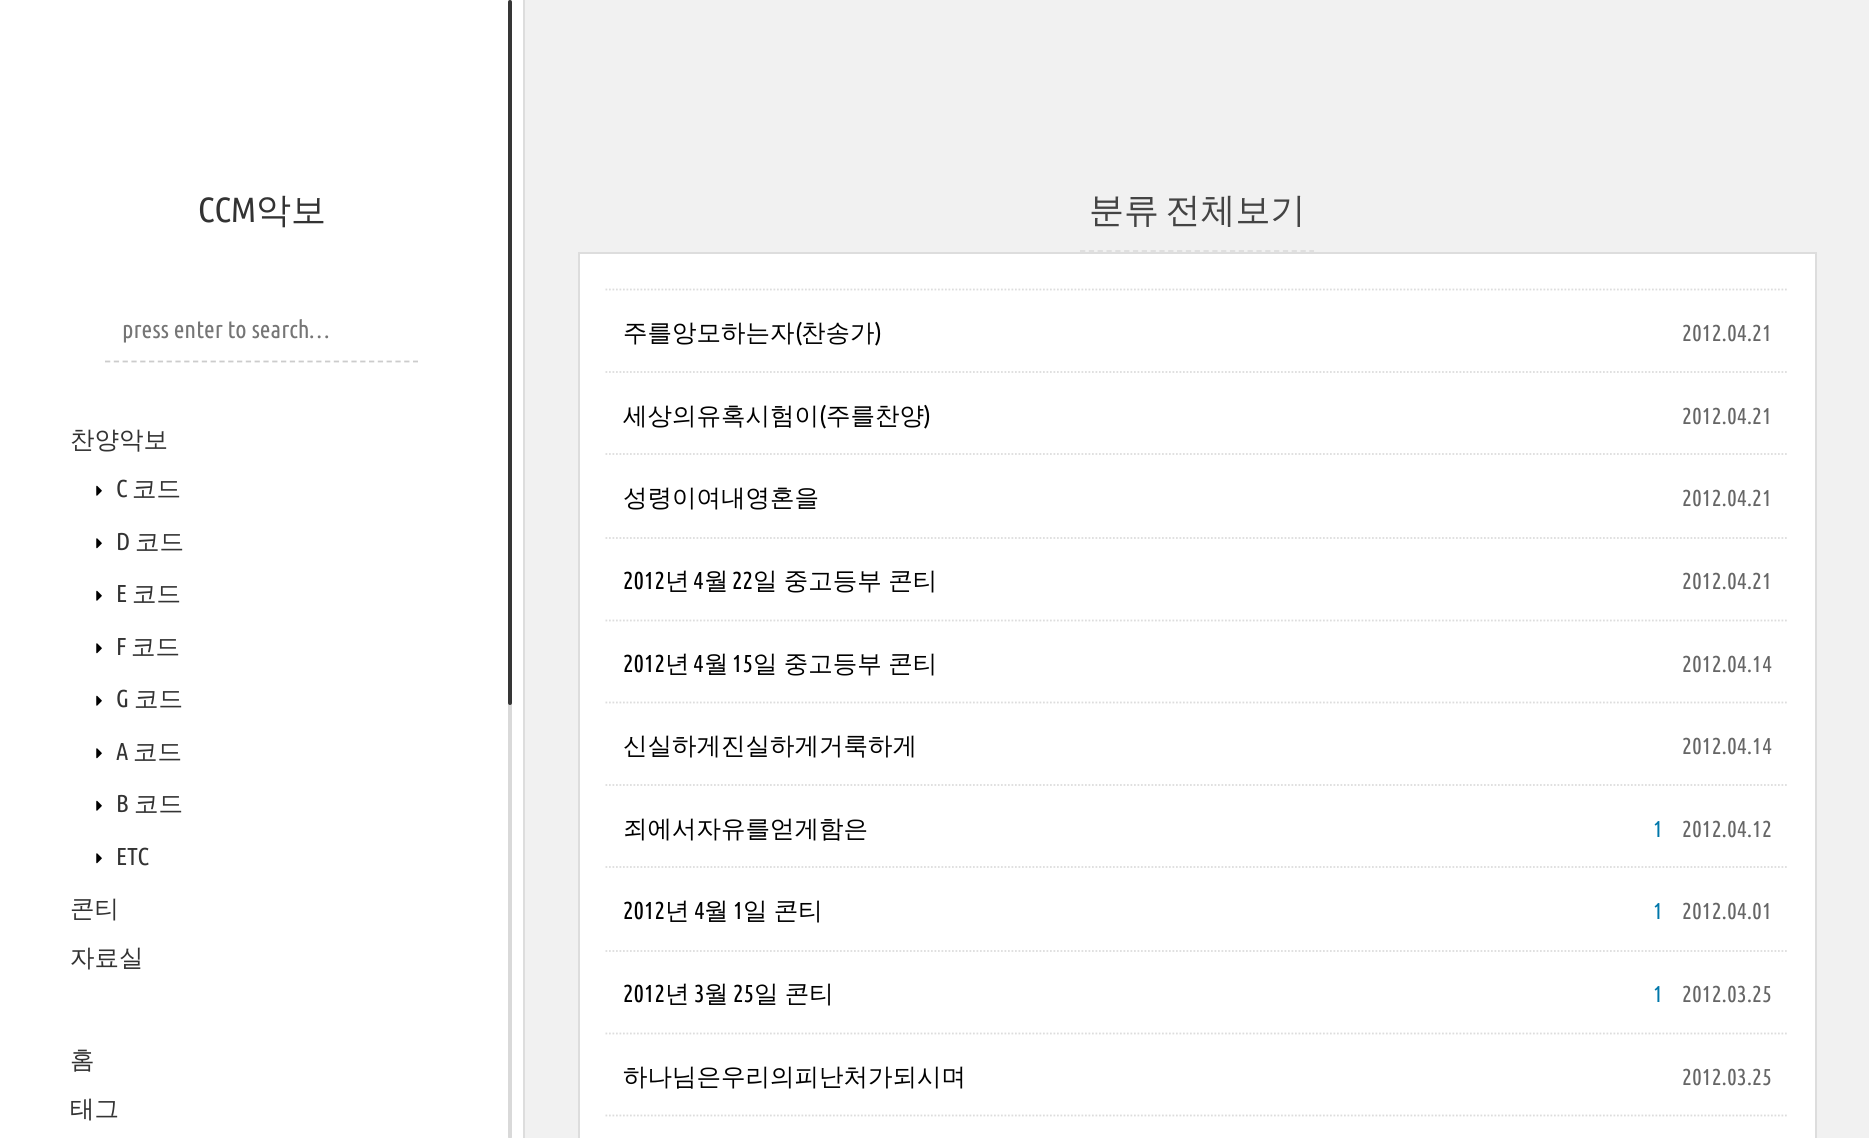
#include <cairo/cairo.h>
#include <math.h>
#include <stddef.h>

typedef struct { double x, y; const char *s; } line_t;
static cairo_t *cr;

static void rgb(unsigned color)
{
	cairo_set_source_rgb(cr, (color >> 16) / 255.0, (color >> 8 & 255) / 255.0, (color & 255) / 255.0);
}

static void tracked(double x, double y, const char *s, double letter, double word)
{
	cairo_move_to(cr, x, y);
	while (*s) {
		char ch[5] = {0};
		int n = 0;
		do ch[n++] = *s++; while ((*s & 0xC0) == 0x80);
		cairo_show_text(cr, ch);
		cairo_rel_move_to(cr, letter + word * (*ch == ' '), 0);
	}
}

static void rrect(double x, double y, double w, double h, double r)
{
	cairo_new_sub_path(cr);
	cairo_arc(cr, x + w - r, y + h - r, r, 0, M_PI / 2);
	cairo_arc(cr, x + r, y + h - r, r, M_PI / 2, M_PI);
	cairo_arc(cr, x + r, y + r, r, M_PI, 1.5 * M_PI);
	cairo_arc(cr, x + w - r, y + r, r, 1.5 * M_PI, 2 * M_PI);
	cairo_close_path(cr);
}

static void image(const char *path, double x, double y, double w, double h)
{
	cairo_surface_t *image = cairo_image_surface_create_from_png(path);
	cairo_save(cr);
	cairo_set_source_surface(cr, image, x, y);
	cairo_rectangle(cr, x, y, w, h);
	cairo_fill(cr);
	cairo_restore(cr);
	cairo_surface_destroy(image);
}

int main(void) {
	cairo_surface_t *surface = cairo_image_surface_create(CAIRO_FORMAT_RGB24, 1869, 1138);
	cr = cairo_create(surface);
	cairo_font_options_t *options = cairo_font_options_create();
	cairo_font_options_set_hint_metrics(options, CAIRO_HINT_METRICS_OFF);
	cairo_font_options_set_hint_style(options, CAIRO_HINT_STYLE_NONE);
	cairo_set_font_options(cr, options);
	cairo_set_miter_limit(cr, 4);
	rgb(0xf1f1f1);
	cairo_paint(cr);
	rgb(0xffffff);
	cairo_rectangle(cr, 0, 0, 523, 1138);
	cairo_fill(cr);
	rgb(0xdddddd);
	cairo_rectangle(cr, 523, 0, 2, 1138);
	cairo_fill(cr);
	cairo_new_path(cr);
	cairo_move_to(cr, 105, 361.5);
	cairo_line_to(cr, 418, 361.5);
	rgb(0xcccccc);
	cairo_set_line_width(cr, 1.8);
	cairo_set_dash(cr, (double[]){5.25, 3.55}, 2, 0);
	cairo_stroke(cr);
	image("img/1.png", 96, 485, 6, 11);
	image("img/2.png", 96, 538, 6, 11);
	image("img/3.png", 96, 590, 6, 11);
	image("img/2.png", 96, 643, 6, 11);
	image("img/3.png", 96, 695, 6, 11);
	image("img/2.png", 96, 748, 6, 11);
	image("img/3.png", 96, 800, 6, 11);
	image("img/2.png", 96, 853, 6, 11);
	rgb(0xd9d9d9);
	rrect(508, 0, 4, 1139, 2);
	cairo_fill(cr);
	cairo_set_source_rgba(cr, 0, 0, 0, 0.75);
	rrect(508, 0, 4, 705, 2);
	cairo_fill(cr);
	cairo_new_path(cr);
	cairo_move_to(cr, 1080, 251);
	cairo_line_to(cr, 1314, 251);
	rgb(0xdddddd);
	cairo_set_dash(cr, (double[]){5.25, 3.57}, 2, 0);
	cairo_stroke(cr);
	rgb(0xffffff);
	cairo_rectangle(cr, 579, 253, 1237, 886);
	cairo_fill_preserve(cr);
	rgb(0xdddddd);
	cairo_set_line_width(cr, 2);
	cairo_set_dash(cr, NULL, 0, 0);
	cairo_stroke(cr);
	cairo_new_path(cr);
	cairo_move_to(cr, 605.5, 289.5);
	cairo_line_to(cr, 1788.5, 289.5);
	cairo_set_line_width(cr, 1.8);
	cairo_set_dash(cr, (double[]){1.75, 1.75}, 2, 0);
	cairo_stroke(cr);
	cairo_new_path(cr);
	cairo_move_to(cr, 605.5, 372);
	cairo_line_to(cr, 1788.5, 372);
	cairo_stroke(cr);
	cairo_new_path(cr);
	cairo_move_to(cr, 605.5, 454);
	cairo_line_to(cr, 1788.5, 454);
	cairo_stroke(cr);
	cairo_new_path(cr);
	cairo_move_to(cr, 605.5, 538);
	cairo_line_to(cr, 1788.5, 538);
	cairo_stroke(cr);
	cairo_new_path(cr);
	cairo_move_to(cr, 605.5, 620.5);
	cairo_line_to(cr, 1788.5, 620.5);
	cairo_stroke(cr);
	cairo_new_path(cr);
	cairo_move_to(cr, 605.5, 702.5);
	cairo_line_to(cr, 1788.5, 702.5);
	cairo_stroke(cr);
	cairo_new_path(cr);
	cairo_move_to(cr, 605.5, 785);
	cairo_line_to(cr, 1788.5, 785);
	cairo_stroke(cr);
	cairo_new_path(cr);
	cairo_move_to(cr, 605.5, 867);
	cairo_line_to(cr, 1788.5, 867);
	cairo_stroke(cr);
	cairo_new_path(cr);
	cairo_move_to(cr, 605.5, 951);
	cairo_line_to(cr, 1788.5, 951);
	cairo_stroke(cr);
	cairo_new_path(cr);
	cairo_move_to(cr, 605.5, 1033.5);
	cairo_line_to(cr, 1788.5, 1033.5);
	cairo_stroke(cr);
	cairo_new_path(cr);
	cairo_move_to(cr, 605.5, 1115.5);
	cairo_line_to(cr, 1788.5, 1115.5);
	cairo_stroke(cr);
	cairo_select_font_face(cr, "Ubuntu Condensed", CAIRO_FONT_SLANT_NORMAL, CAIRO_FONT_WEIGHT_NORMAL);
	cairo_set_font_size(cr, 35);
	rgb(0x333333);
	cairo_move_to(cr, 198, 222);
	cairo_show_text(cr, "CCM");
	cairo_select_font_face(cr, "WenQuanYi Zen Hei Medium", CAIRO_FONT_SLANT_NORMAL, CAIRO_FONT_WEIGHT_NORMAL);
	cairo_move_to(cr, 256, 222);
	cairo_show_text(cr, "악보");
	cairo_select_font_face(cr, "Ubuntu Condensed", CAIRO_FONT_SLANT_NORMAL, CAIRO_FONT_WEIGHT_NORMAL);
	cairo_set_font_size(cr, 24.5);
	rgb(0x757575);
	cairo_move_to(cr, 122, 338);
	cairo_show_text(cr, "press enter to search…");
	cairo_select_font_face(cr, "WenQuanYi Zen Hei Medium", CAIRO_FONT_SLANT_NORMAL, CAIRO_FONT_WEIGHT_NORMAL);
	rgb(0x333333);
	cairo_move_to(cr, 70, 448);
	cairo_show_text(cr, "찬양악보");
	cairo_select_font_face(cr, "Ubuntu Condensed", CAIRO_FONT_SLANT_NORMAL, CAIRO_FONT_WEIGHT_NORMAL);
	cairo_move_to(cr, 116, 497);
	cairo_show_text(cr, "C");
	cairo_select_font_face(cr, "WenQuanYi Zen Hei Medium", CAIRO_FONT_SLANT_NORMAL, CAIRO_FONT_WEIGHT_NORMAL);
	cairo_move_to(cr, 132, 497);
	cairo_show_text(cr, "코드");
	cairo_select_font_face(cr, "Ubuntu Condensed", CAIRO_FONT_SLANT_NORMAL, CAIRO_FONT_WEIGHT_NORMAL);
	cairo_move_to(cr, 116, 550);
	cairo_show_text(cr, "D");
	cairo_select_font_face(cr, "WenQuanYi Zen Hei Medium", CAIRO_FONT_SLANT_NORMAL, CAIRO_FONT_WEIGHT_NORMAL);
	cairo_move_to(cr, 135, 550);
	cairo_show_text(cr, "코드");
	cairo_select_font_face(cr, "Ubuntu Condensed", CAIRO_FONT_SLANT_NORMAL, CAIRO_FONT_WEIGHT_NORMAL);
	cairo_move_to(cr, 116, 602);
	cairo_show_text(cr, "E");
	cairo_select_font_face(cr, "WenQuanYi Zen Hei Medium", CAIRO_FONT_SLANT_NORMAL, CAIRO_FONT_WEIGHT_NORMAL);
	cairo_move_to(cr, 132, 602);
	cairo_show_text(cr, "코드");
	cairo_select_font_face(cr, "Ubuntu Condensed", CAIRO_FONT_SLANT_NORMAL, CAIRO_FONT_WEIGHT_NORMAL);
	cairo_move_to(cr, 116, 655);
	cairo_show_text(cr, "F");
	cairo_select_font_face(cr, "WenQuanYi Zen Hei Medium", CAIRO_FONT_SLANT_NORMAL, CAIRO_FONT_WEIGHT_NORMAL);
	cairo_move_to(cr, 131, 655);
	cairo_show_text(cr, "코드");
	cairo_select_font_face(cr, "Ubuntu Condensed", CAIRO_FONT_SLANT_NORMAL, CAIRO_FONT_WEIGHT_NORMAL);
	cairo_move_to(cr, 116, 707);
	cairo_show_text(cr, "G");
	cairo_select_font_face(cr, "WenQuanYi Zen Hei Medium", CAIRO_FONT_SLANT_NORMAL, CAIRO_FONT_WEIGHT_NORMAL);
	cairo_move_to(cr, 134, 707);
	cairo_show_text(cr, "코드");
	cairo_select_font_face(cr, "Ubuntu Condensed", CAIRO_FONT_SLANT_NORMAL, CAIRO_FONT_WEIGHT_NORMAL);
	cairo_move_to(cr, 116, 760);
	cairo_show_text(cr, "A");
	cairo_select_font_face(cr, "WenQuanYi Zen Hei Medium", CAIRO_FONT_SLANT_NORMAL, CAIRO_FONT_WEIGHT_NORMAL);
	cairo_move_to(cr, 133, 760);
	cairo_show_text(cr, "코드");
	cairo_select_font_face(cr, "Ubuntu Condensed", CAIRO_FONT_SLANT_NORMAL, CAIRO_FONT_WEIGHT_NORMAL);
	cairo_move_to(cr, 116, 812);
	cairo_show_text(cr, "B");
	cairo_select_font_face(cr, "WenQuanYi Zen Hei Medium", CAIRO_FONT_SLANT_NORMAL, CAIRO_FONT_WEIGHT_NORMAL);
	cairo_move_to(cr, 134, 812);
	cairo_show_text(cr, "코드");
	cairo_select_font_face(cr, "Ubuntu Condensed", CAIRO_FONT_SLANT_NORMAL, CAIRO_FONT_WEIGHT_NORMAL);
	cairo_move_to(cr, 116, 865);
	cairo_show_text(cr, "ETC");
	cairo_select_font_face(cr, "WenQuanYi Zen Hei Medium", CAIRO_FONT_SLANT_NORMAL, CAIRO_FONT_WEIGHT_NORMAL);
	{
		static const line_t items[] = {
			{70, 917, "콘티"},
			{70, 966, "자료실"},
			{70, 1068, "홈"},
			{70, 1117, "태그"},
		};
		for (size_t i = 0; i < sizeof items / sizeof *items; i++) {
			cairo_move_to(cr, items[i].x, items[i].y);
			cairo_show_text(cr, items[i].s);
		}
	}
	cairo_set_font_size(cr, 35);
	rgb(0x444444);
	tracked(1089, 222, "분류 전체보기", 0, -4);
	cairo_set_font_size(cr, 24.5);
	rgb(0x000000);
	cairo_move_to(cr, 623, 341);
	cairo_show_text(cr, "주를앙모하는자");
	cairo_select_font_face(cr, "Ubuntu Condensed", CAIRO_FONT_SLANT_NORMAL, CAIRO_FONT_WEIGHT_NORMAL);
	cairo_move_to(cr, 795, 341);
	cairo_show_text(cr, "(");
	cairo_select_font_face(cr, "WenQuanYi Zen Hei Medium", CAIRO_FONT_SLANT_NORMAL, CAIRO_FONT_WEIGHT_NORMAL);
	cairo_move_to(cr, 801, 341);
	cairo_show_text(cr, "찬송가");
	cairo_select_font_face(cr, "Ubuntu Condensed", CAIRO_FONT_SLANT_NORMAL, CAIRO_FONT_WEIGHT_NORMAL);
	cairo_move_to(cr, 875, 341);
	cairo_show_text(cr, ")");
	cairo_set_font_size(cr, 23);
	rgb(0x666666);
	cairo_move_to(cr, 1682, 341);
	cairo_show_text(cr, "2012.04.21");
	cairo_select_font_face(cr, "WenQuanYi Zen Hei Medium", CAIRO_FONT_SLANT_NORMAL, CAIRO_FONT_WEIGHT_NORMAL);
	cairo_set_font_size(cr, 24.5);
	rgb(0x000000);
	cairo_move_to(cr, 623, 424);
	cairo_show_text(cr, "세상의유혹시험이");
	cairo_select_font_face(cr, "Ubuntu Condensed", CAIRO_FONT_SLANT_NORMAL, CAIRO_FONT_WEIGHT_NORMAL);
	cairo_move_to(cr, 819, 424);
	cairo_show_text(cr, "(");
	cairo_select_font_face(cr, "WenQuanYi Zen Hei Medium", CAIRO_FONT_SLANT_NORMAL, CAIRO_FONT_WEIGHT_NORMAL);
	cairo_move_to(cr, 826, 424);
	cairo_show_text(cr, "주를찬양");
	cairo_select_font_face(cr, "Ubuntu Condensed", CAIRO_FONT_SLANT_NORMAL, CAIRO_FONT_WEIGHT_NORMAL);
	cairo_move_to(cr, 924, 424);
	cairo_show_text(cr, ")");
	cairo_set_font_size(cr, 23);
	rgb(0x666666);
	cairo_move_to(cr, 1682, 424);
	cairo_show_text(cr, "2012.04.21");
	cairo_select_font_face(cr, "WenQuanYi Zen Hei Medium", CAIRO_FONT_SLANT_NORMAL, CAIRO_FONT_WEIGHT_NORMAL);
	cairo_set_font_size(cr, 24.5);
	rgb(0x000000);
	cairo_move_to(cr, 623, 506);
	cairo_show_text(cr, "성령이여내영혼을");
	cairo_select_font_face(cr, "Ubuntu Condensed", CAIRO_FONT_SLANT_NORMAL, CAIRO_FONT_WEIGHT_NORMAL);
	cairo_set_font_size(cr, 23);
	rgb(0x666666);
	cairo_move_to(cr, 1682, 506);
	cairo_show_text(cr, "2012.04.21");
	cairo_set_font_size(cr, 24.5);
	rgb(0x000000);
	cairo_move_to(cr, 623, 589);
	cairo_show_text(cr, "2012");
	cairo_select_font_face(cr, "WenQuanYi Zen Hei Medium", CAIRO_FONT_SLANT_NORMAL, CAIRO_FONT_WEIGHT_NORMAL);
	cairo_move_to(cr, 665, 589);
	cairo_show_text(cr, "년");
	cairo_select_font_face(cr, "Ubuntu Condensed", CAIRO_FONT_SLANT_NORMAL, CAIRO_FONT_WEIGHT_NORMAL);
	cairo_move_to(cr, 693, 589);
	cairo_show_text(cr, "4");
	cairo_select_font_face(cr, "WenQuanYi Zen Hei Medium", CAIRO_FONT_SLANT_NORMAL, CAIRO_FONT_WEIGHT_NORMAL);
	cairo_move_to(cr, 704, 589);
	cairo_show_text(cr, "월");
	cairo_select_font_face(cr, "Ubuntu Condensed", CAIRO_FONT_SLANT_NORMAL, CAIRO_FONT_WEIGHT_NORMAL);
	cairo_move_to(cr, 732, 589);
	cairo_show_text(cr, "22");
	cairo_select_font_face(cr, "WenQuanYi Zen Hei Medium", CAIRO_FONT_SLANT_NORMAL, CAIRO_FONT_WEIGHT_NORMAL);
	tracked(753, 589, "일 중고등부 콘티", 0, -1);
	cairo_select_font_face(cr, "Ubuntu Condensed", CAIRO_FONT_SLANT_NORMAL, CAIRO_FONT_WEIGHT_NORMAL);
	cairo_set_font_size(cr, 23);
	rgb(0x666666);
	cairo_move_to(cr, 1682, 589);
	cairo_show_text(cr, "2012.04.21");
	cairo_set_font_size(cr, 24.5);
	rgb(0x000000);
	cairo_move_to(cr, 623, 672);
	cairo_show_text(cr, "2012");
	cairo_select_font_face(cr, "WenQuanYi Zen Hei Medium", CAIRO_FONT_SLANT_NORMAL, CAIRO_FONT_WEIGHT_NORMAL);
	cairo_move_to(cr, 665, 672);
	cairo_show_text(cr, "년");
	cairo_select_font_face(cr, "Ubuntu Condensed", CAIRO_FONT_SLANT_NORMAL, CAIRO_FONT_WEIGHT_NORMAL);
	cairo_move_to(cr, 693, 672);
	cairo_show_text(cr, "4");
	cairo_select_font_face(cr, "WenQuanYi Zen Hei Medium", CAIRO_FONT_SLANT_NORMAL, CAIRO_FONT_WEIGHT_NORMAL);
	cairo_move_to(cr, 704, 672);
	cairo_show_text(cr, "월");
	cairo_select_font_face(cr, "Ubuntu Condensed", CAIRO_FONT_SLANT_NORMAL, CAIRO_FONT_WEIGHT_NORMAL);
	cairo_move_to(cr, 732, 672);
	cairo_show_text(cr, "15");
	cairo_select_font_face(cr, "WenQuanYi Zen Hei Medium", CAIRO_FONT_SLANT_NORMAL, CAIRO_FONT_WEIGHT_NORMAL);
	tracked(753, 672, "일 중고등부 콘티", 0, -1);
	cairo_select_font_face(cr, "Ubuntu Condensed", CAIRO_FONT_SLANT_NORMAL, CAIRO_FONT_WEIGHT_NORMAL);
	cairo_set_font_size(cr, 23);
	rgb(0x666666);
	cairo_move_to(cr, 1682, 672);
	cairo_show_text(cr, "2012.04.14");
	cairo_select_font_face(cr, "WenQuanYi Zen Hei Medium", CAIRO_FONT_SLANT_NORMAL, CAIRO_FONT_WEIGHT_NORMAL);
	cairo_set_font_size(cr, 24.5);
	rgb(0x000000);
	cairo_move_to(cr, 623, 754);
	cairo_show_text(cr, "신실하게진실하게거룩하게");
	cairo_select_font_face(cr, "Ubuntu Condensed", CAIRO_FONT_SLANT_NORMAL, CAIRO_FONT_WEIGHT_NORMAL);
	cairo_set_font_size(cr, 23);
	rgb(0x666666);
	cairo_move_to(cr, 1682, 754);
	cairo_show_text(cr, "2012.04.14");
	cairo_select_font_face(cr, "WenQuanYi Zen Hei Medium", CAIRO_FONT_SLANT_NORMAL, CAIRO_FONT_WEIGHT_NORMAL);
	cairo_set_font_size(cr, 24.5);
	rgb(0x000000);
	cairo_move_to(cr, 623, 837);
	cairo_show_text(cr, "죄에서자유를얻게함은");
	cairo_select_font_face(cr, "Ubuntu Condensed", CAIRO_FONT_SLANT_NORMAL, CAIRO_FONT_WEIGHT_NORMAL);
	cairo_set_font_size(cr, 23);
	rgb(0x0077aa);
	cairo_move_to(cr, 1653, 837);
	cairo_show_text(cr, "1");
	rgb(0x666666);
	cairo_move_to(cr, 1682, 837);
	cairo_show_text(cr, "2012.04.12");
	cairo_set_font_size(cr, 24.5);
	rgb(0x000000);
	cairo_move_to(cr, 623, 919);
	cairo_show_text(cr, "2012");
	cairo_select_font_face(cr, "WenQuanYi Zen Hei Medium", CAIRO_FONT_SLANT_NORMAL, CAIRO_FONT_WEIGHT_NORMAL);
	cairo_move_to(cr, 665, 919);
	cairo_show_text(cr, "년");
	cairo_select_font_face(cr, "Ubuntu Condensed", CAIRO_FONT_SLANT_NORMAL, CAIRO_FONT_WEIGHT_NORMAL);
	cairo_move_to(cr, 694, 919);
	cairo_show_text(cr, "4");
	cairo_select_font_face(cr, "WenQuanYi Zen Hei Medium", CAIRO_FONT_SLANT_NORMAL, CAIRO_FONT_WEIGHT_NORMAL);
	cairo_move_to(cr, 704, 919);
	cairo_show_text(cr, "월");
	cairo_select_font_face(cr, "Ubuntu Condensed", CAIRO_FONT_SLANT_NORMAL, CAIRO_FONT_WEIGHT_NORMAL);
	cairo_move_to(cr, 733, 919);
	cairo_show_text(cr, "1");
	cairo_select_font_face(cr, "WenQuanYi Zen Hei Medium", CAIRO_FONT_SLANT_NORMAL, CAIRO_FONT_WEIGHT_NORMAL);
	tracked(743, 919, "일 콘티", 0, -1);
	cairo_select_font_face(cr, "Ubuntu Condensed", CAIRO_FONT_SLANT_NORMAL, CAIRO_FONT_WEIGHT_NORMAL);
	cairo_set_font_size(cr, 23);
	rgb(0x0077aa);
	cairo_move_to(cr, 1653, 919);
	cairo_show_text(cr, "1");
	rgb(0x666666);
	cairo_move_to(cr, 1682, 919);
	cairo_show_text(cr, "2012.04.01");
	cairo_set_font_size(cr, 24.5);
	rgb(0x000000);
	cairo_move_to(cr, 623, 1002);
	cairo_show_text(cr, "2012");
	cairo_select_font_face(cr, "WenQuanYi Zen Hei Medium", CAIRO_FONT_SLANT_NORMAL, CAIRO_FONT_WEIGHT_NORMAL);
	cairo_move_to(cr, 665, 1002);
	cairo_show_text(cr, "년");
	cairo_select_font_face(cr, "Ubuntu Condensed", CAIRO_FONT_SLANT_NORMAL, CAIRO_FONT_WEIGHT_NORMAL);
	cairo_move_to(cr, 694, 1002);
	cairo_show_text(cr, "3");
	cairo_select_font_face(cr, "WenQuanYi Zen Hei Medium", CAIRO_FONT_SLANT_NORMAL, CAIRO_FONT_WEIGHT_NORMAL);
	cairo_move_to(cr, 704, 1002);
	cairo_show_text(cr, "월");
	cairo_select_font_face(cr, "Ubuntu Condensed", CAIRO_FONT_SLANT_NORMAL, CAIRO_FONT_WEIGHT_NORMAL);
	cairo_move_to(cr, 733, 1002);
	cairo_show_text(cr, "25");
	cairo_select_font_face(cr, "WenQuanYi Zen Hei Medium", CAIRO_FONT_SLANT_NORMAL, CAIRO_FONT_WEIGHT_NORMAL);
	tracked(754, 1002, "일 콘티", 0, -1);
	cairo_select_font_face(cr, "Ubuntu Condensed", CAIRO_FONT_SLANT_NORMAL, CAIRO_FONT_WEIGHT_NORMAL);
	cairo_set_font_size(cr, 23);
	rgb(0x0077aa);
	cairo_move_to(cr, 1653, 1002);
	cairo_show_text(cr, "1");
	rgb(0x666666);
	cairo_move_to(cr, 1682, 1002);
	cairo_show_text(cr, "2012.03.25");
	cairo_select_font_face(cr, "WenQuanYi Zen Hei Medium", CAIRO_FONT_SLANT_NORMAL, CAIRO_FONT_WEIGHT_NORMAL);
	cairo_set_font_size(cr, 24.5);
	rgb(0x000000);
	cairo_move_to(cr, 623, 1085);
	cairo_show_text(cr, "하나님은우리의피난처가되시며");
	cairo_select_font_face(cr, "Ubuntu Condensed", CAIRO_FONT_SLANT_NORMAL, CAIRO_FONT_WEIGHT_NORMAL);
	cairo_set_font_size(cr, 23);
	rgb(0x666666);
	cairo_move_to(cr, 1682, 1085);
	cairo_show_text(cr, "2012.03.25");
	cairo_surface_write_to_png(surface, "page.png");
	cairo_font_options_destroy(options);
	cairo_destroy(cr);
	cairo_surface_destroy(surface);
	return 0;
}
